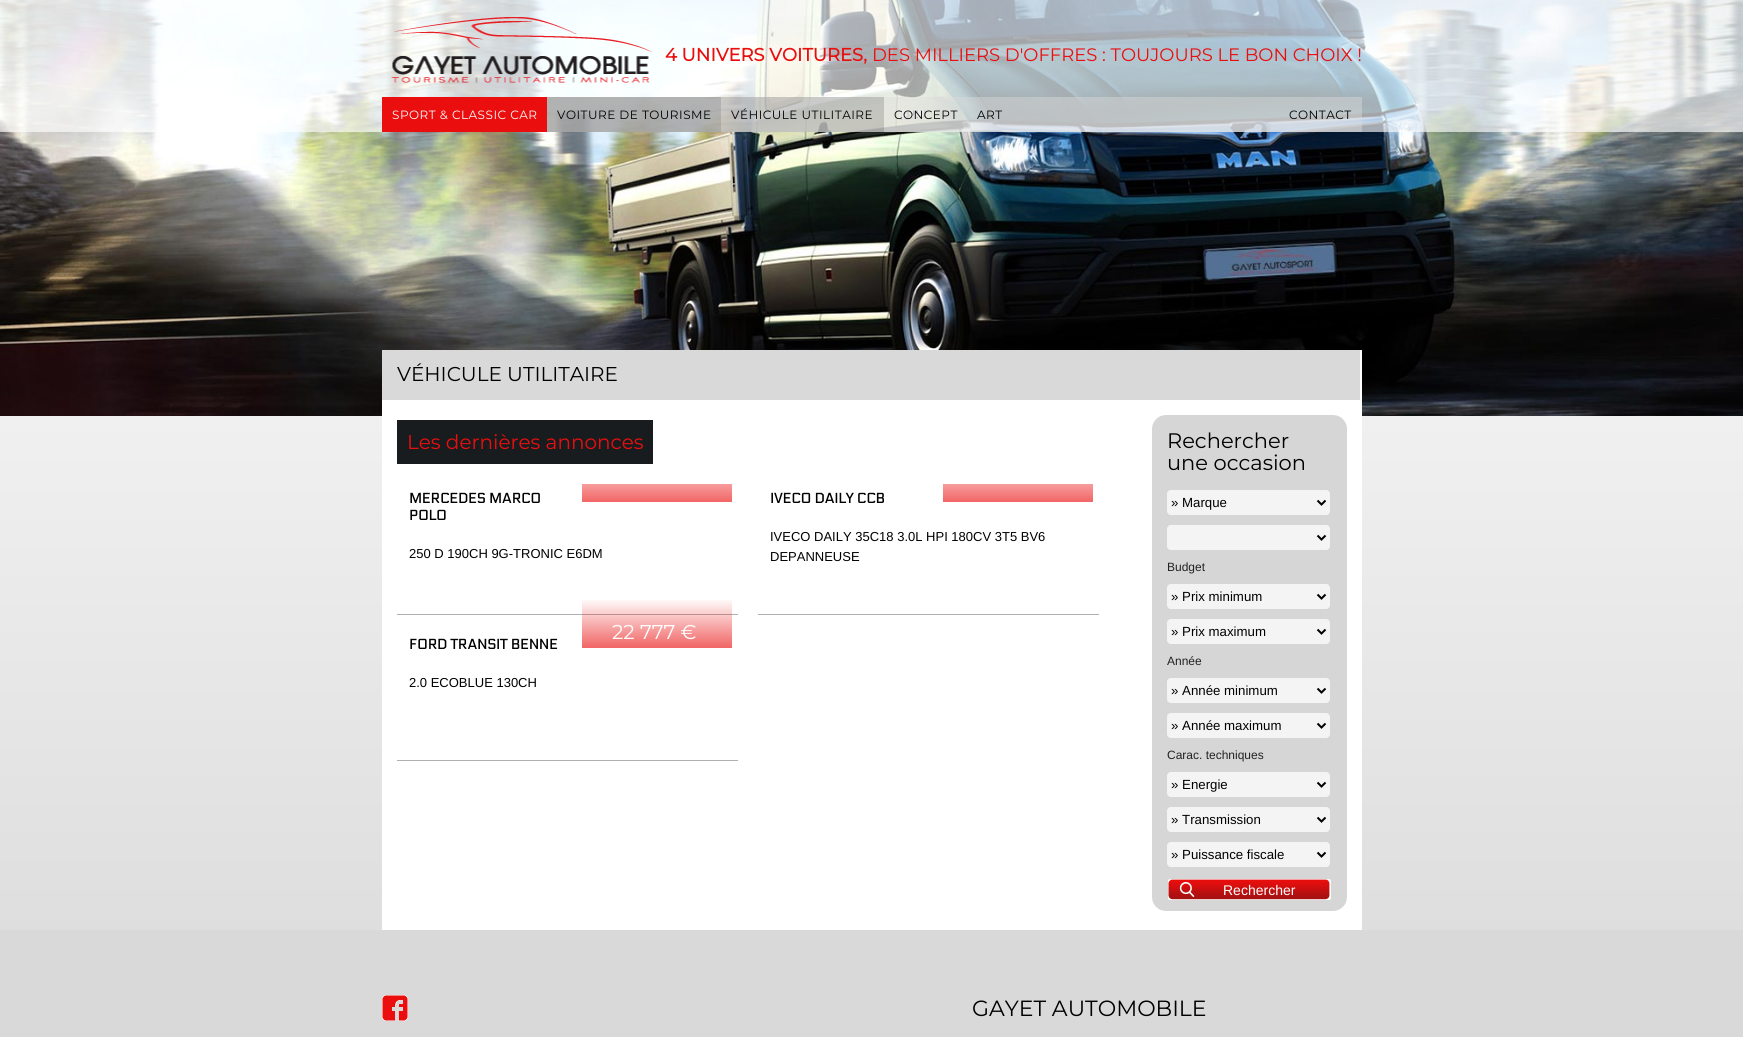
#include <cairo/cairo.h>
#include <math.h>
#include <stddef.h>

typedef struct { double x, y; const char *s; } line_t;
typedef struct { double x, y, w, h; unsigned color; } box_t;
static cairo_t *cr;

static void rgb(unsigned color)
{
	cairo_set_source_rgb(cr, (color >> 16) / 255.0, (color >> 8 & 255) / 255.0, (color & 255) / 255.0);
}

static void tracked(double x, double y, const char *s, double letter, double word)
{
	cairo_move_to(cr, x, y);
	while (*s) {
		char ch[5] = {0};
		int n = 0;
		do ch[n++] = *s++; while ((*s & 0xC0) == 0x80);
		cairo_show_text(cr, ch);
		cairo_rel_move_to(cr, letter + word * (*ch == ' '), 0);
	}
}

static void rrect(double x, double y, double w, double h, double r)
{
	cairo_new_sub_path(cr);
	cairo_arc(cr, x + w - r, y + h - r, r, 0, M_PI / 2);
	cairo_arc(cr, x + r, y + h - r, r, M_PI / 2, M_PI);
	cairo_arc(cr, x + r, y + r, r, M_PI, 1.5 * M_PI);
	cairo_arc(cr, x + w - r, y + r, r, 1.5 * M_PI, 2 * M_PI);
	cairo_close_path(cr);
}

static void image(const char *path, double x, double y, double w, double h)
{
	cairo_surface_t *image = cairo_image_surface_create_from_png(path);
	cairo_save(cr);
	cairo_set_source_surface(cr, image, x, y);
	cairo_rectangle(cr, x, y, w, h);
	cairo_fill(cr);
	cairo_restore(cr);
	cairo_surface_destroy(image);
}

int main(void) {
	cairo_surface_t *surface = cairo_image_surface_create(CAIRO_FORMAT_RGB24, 1743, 1037);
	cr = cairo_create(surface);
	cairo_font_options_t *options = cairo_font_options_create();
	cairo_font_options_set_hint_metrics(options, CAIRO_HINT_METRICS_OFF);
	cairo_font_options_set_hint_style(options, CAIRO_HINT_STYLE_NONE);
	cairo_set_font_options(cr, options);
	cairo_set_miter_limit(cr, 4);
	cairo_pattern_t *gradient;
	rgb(0xd9d9d9);
	cairo_paint(cr);
	image("img/2.png", 0, 0, 1743, 416);
	image("img/1.png", 0, 0, 1743, 132);
	cairo_set_source_rgba(cr, 0.851, 0.851, 0.851, 0.46);
	cairo_rectangle(cr, 547, 97, 815, 35);
	cairo_fill(cr);
	rgb(0xea0e0e);
	cairo_rectangle(cr, 382, 97, 165, 35);
	cairo_fill(cr);
	cairo_set_source_rgba(cr, 0, 0, 0, 0.25);
	cairo_rectangle(cr, 547, 97, 174, 35);
	cairo_fill(cr);
	cairo_set_source_rgba(cr, 0, 0, 0, 0.15);
	cairo_rectangle(cr, 721, 97, 163, 35);
	cairo_fill(cr);
	gradient = cairo_pattern_create_linear(872, 930, 872, -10);
	cairo_pattern_add_color_stop_rgba(gradient, 0, 0.871, 0.871, 0.871, 1);
	cairo_pattern_add_color_stop_rgba(gradient, 1, 1, 1, 1, 1);
	cairo_set_source(cr, gradient);
	cairo_pattern_destroy(gradient);
	cairo_rectangle(cr, 0, 416, 1743, 514);
	cairo_fill(cr);
	{
		static const box_t items[] = {
			{382, 350, 980, 580, 0xffffff},
			{382, 350, 978, 50, 0xd9d9d9},
			{397, 420, 256, 44, 0x181c1f},
			{397, 614, 341, 1, 0xb0b0b0},
		};
		for (size_t i = 0; i < sizeof items / sizeof *items; i++) {
			rgb(items[i].color);
			cairo_rectangle(cr, items[i].x, items[i].y, items[i].w, items[i].h);
			cairo_fill(cr);
		}
	}
	gradient = cairo_pattern_create_linear(657, 502, 657, 452);
	cairo_pattern_add_color_stop_rgba(gradient, 0, 0.949, 0.396, 0.396, 1);
	cairo_pattern_add_color_stop_rgba(gradient, 1, 1, 1, 1, 1);
	cairo_set_source(cr, gradient);
	cairo_pattern_destroy(gradient);
	cairo_rectangle(cr, 582, 484, 150, 18);
	cairo_fill(cr);
	rgb(0xb0b0b0);
	cairo_rectangle(cr, 758, 614, 341, 1);
	cairo_fill(cr);
	gradient = cairo_pattern_create_linear(1018, 502, 1018, 452);
	cairo_pattern_add_color_stop_rgba(gradient, 0, 0.949, 0.396, 0.396, 1);
	cairo_pattern_add_color_stop_rgba(gradient, 1, 1, 1, 1, 1);
	cairo_set_source(cr, gradient);
	cairo_pattern_destroy(gradient);
	cairo_rectangle(cr, 943, 484, 150, 18);
	cairo_fill(cr);
	rgb(0xb0b0b0);
	cairo_rectangle(cr, 397, 760, 341, 1);
	cairo_fill(cr);
	gradient = cairo_pattern_create_linear(657, 648, 657, 598);
	cairo_pattern_add_color_stop_rgba(gradient, 0, 0.918, 0.055, 0.055, 0.64);
	cairo_pattern_add_color_stop_rgba(gradient, 1, 0.918, 0.055, 0.055, 0);
	cairo_set_source(cr, gradient);
	cairo_pattern_destroy(gradient);
	cairo_rectangle(cr, 582, 600, 150, 48);
	cairo_fill(cr);
	rgb(0xd6d6d6);
	rrect(1152, 415, 195, 496, 14);
	cairo_fill(cr);
	rgb(0xf3f4f3);
	rrect(1167, 490, 163, 25, 4);
	cairo_fill(cr);
	cairo_new_path(cr);
	cairo_move_to(cr, 1317.5, 500.5);
	cairo_line_to(cr, 1321.5, 504.5);
	cairo_line_to(cr, 1325.5, 500.5);
	rgb(0x000000);
	cairo_stroke(cr);
	rgb(0xf3f4f3);
	rrect(1167, 525, 163, 25, 4);
	cairo_fill(cr);
	cairo_new_path(cr);
	cairo_move_to(cr, 1317.5, 535.5);
	cairo_line_to(cr, 1321.5, 539.5);
	cairo_line_to(cr, 1325.5, 535.5);
	rgb(0x000000);
	cairo_stroke(cr);
	rgb(0xf3f4f3);
	rrect(1167, 584, 163, 25, 4);
	cairo_fill(cr);
	cairo_new_path(cr);
	cairo_move_to(cr, 1317.5, 594.5);
	cairo_line_to(cr, 1321.5, 598.5);
	cairo_line_to(cr, 1325.5, 594.5);
	rgb(0x000000);
	cairo_stroke(cr);
	rgb(0xf3f4f3);
	rrect(1167, 619, 163, 25, 4);
	cairo_fill(cr);
	cairo_new_path(cr);
	cairo_move_to(cr, 1317.5, 629.5);
	cairo_line_to(cr, 1321.5, 633.5);
	cairo_line_to(cr, 1325.5, 629.5);
	rgb(0x000000);
	cairo_stroke(cr);
	rgb(0xf3f4f3);
	rrect(1167, 678, 163, 25, 4);
	cairo_fill(cr);
	cairo_new_path(cr);
	cairo_move_to(cr, 1317.5, 688.5);
	cairo_line_to(cr, 1321.5, 692.5);
	cairo_line_to(cr, 1325.5, 688.5);
	rgb(0x000000);
	cairo_stroke(cr);
	rgb(0xf3f4f3);
	rrect(1167, 713, 163, 25, 4);
	cairo_fill(cr);
	cairo_new_path(cr);
	cairo_move_to(cr, 1317.5, 723.5);
	cairo_line_to(cr, 1321.5, 727.5);
	cairo_line_to(cr, 1325.5, 723.5);
	rgb(0x000000);
	cairo_stroke(cr);
	rgb(0xf3f4f3);
	rrect(1167, 772, 163, 25, 4);
	cairo_fill(cr);
	cairo_new_path(cr);
	cairo_move_to(cr, 1317.5, 782.5);
	cairo_line_to(cr, 1321.5, 786.5);
	cairo_line_to(cr, 1325.5, 782.5);
	rgb(0x000000);
	cairo_stroke(cr);
	rgb(0xf3f4f3);
	rrect(1167, 807, 163, 25, 4);
	cairo_fill(cr);
	cairo_new_path(cr);
	cairo_move_to(cr, 1317.5, 817.5);
	cairo_line_to(cr, 1321.5, 821.5);
	cairo_line_to(cr, 1325.5, 817.5);
	rgb(0x000000);
	cairo_stroke(cr);
	rgb(0xf3f4f3);
	rrect(1167, 842, 163, 25, 4);
	cairo_fill(cr);
	cairo_new_path(cr);
	cairo_move_to(cr, 1317.5, 852.5);
	cairo_line_to(cr, 1321.5, 856.5);
	cairo_line_to(cr, 1325.5, 852.5);
	rgb(0x000000);
	cairo_stroke(cr);
	image("img/3.png", 1168, 879, 163, 21);
	image("img/4.png", 382, 995, 26, 26);
	cairo_select_font_face(cr, "Montserrat", CAIRO_FONT_SLANT_NORMAL, CAIRO_FONT_WEIGHT_BOLD);
	cairo_set_font_size(cr, 18);
	rgb(0xea0e0e);
	cairo_move_to(cr, 665, 61);
	cairo_show_text(cr, "4 UNIVERS VOITURES,");
	cairo_select_font_face(cr, "Montserrat Thin", CAIRO_FONT_SLANT_NORMAL, CAIRO_FONT_WEIGHT_NORMAL);
	cairo_move_to(cr, 872, 61);
	cairo_show_text(cr, "DES MILLIERS D'OFFRES : TOUJOURS LE BON CHOIX !");
	cairo_set_font_size(cr, 12);
	rgb(0xffffff);
	tracked(392, 119, "SPORT & CLASSIC CAR", 0.5, 0);
	rgb(0x000000);
	{
		static const line_t items[] = {
			{557, 119, "VOITURE DE TOURISME"},
			{731, 119, "VÉHICULE UTILITAIRE"},
			{894, 119, "CONCEPT"},
			{977, 119, "ART"},
			{1289, 119, "CONTACT"},
		};
		for (size_t i = 0; i < sizeof items / sizeof *items; i++) {
			tracked(items[i].x, items[i].y, items[i].s, 0.5, 0);
		}
	}
	cairo_set_font_size(cr, 20);
	cairo_move_to(cr, 397, 381);
	cairo_show_text(cr, "VÉHICULE UTILITAIRE");
	rgb(0xea0e0e);
	cairo_move_to(cr, 407, 449);
	cairo_show_text(cr, "Les dernières annonces");
	cairo_select_font_face(cr, "Electrolize", CAIRO_FONT_SLANT_NORMAL, CAIRO_FONT_WEIGHT_BOLD);
	cairo_set_font_size(cr, 14);
	rgb(0x000000);
	cairo_move_to(cr, 409, 503);
	cairo_show_text(cr, "MERCEDES MARCO");
	cairo_move_to(cr, 409, 520);
	cairo_show_text(cr, "POLO");
	cairo_select_font_face(cr, "Liberation Sans", CAIRO_FONT_SLANT_NORMAL, CAIRO_FONT_WEIGHT_NORMAL);
	cairo_set_font_size(cr, 13);
	cairo_move_to(cr, 409, 558);
	cairo_show_text(cr, "250 D 190CH 9G-TRONIC E6DM");
	cairo_select_font_face(cr, "Electrolize", CAIRO_FONT_SLANT_NORMAL, CAIRO_FONT_WEIGHT_BOLD);
	cairo_set_font_size(cr, 14);
	cairo_move_to(cr, 770, 503);
	cairo_show_text(cr, "IVECO DAILY CCB");
	cairo_select_font_face(cr, "Liberation Sans", CAIRO_FONT_SLANT_NORMAL, CAIRO_FONT_WEIGHT_NORMAL);
	cairo_set_font_size(cr, 13);
	cairo_move_to(cr, 770, 541);
	cairo_show_text(cr, "IVECO DAILY 35C18 3.0L HPI 180CV 3T5 BV6");
	cairo_move_to(cr, 770, 561);
	cairo_show_text(cr, "DEPANNEUSE");
	cairo_select_font_face(cr, "Montserrat Thin", CAIRO_FONT_SLANT_NORMAL, CAIRO_FONT_WEIGHT_NORMAL);
	cairo_set_font_size(cr, 20);
	rgb(0xffffff);
	cairo_move_to(cr, 612, 639);
	cairo_show_text(cr, "22 777 €");
	cairo_select_font_face(cr, "Electrolize", CAIRO_FONT_SLANT_NORMAL, CAIRO_FONT_WEIGHT_BOLD);
	cairo_set_font_size(cr, 14);
	rgb(0x000000);
	cairo_move_to(cr, 409, 649);
	cairo_show_text(cr, "FORD TRANSIT BENNE");
	cairo_select_font_face(cr, "Liberation Sans", CAIRO_FONT_SLANT_NORMAL, CAIRO_FONT_WEIGHT_NORMAL);
	cairo_set_font_size(cr, 13);
	cairo_move_to(cr, 409, 687);
	cairo_show_text(cr, "2.0 ECOBLUE 130CH");
	cairo_select_font_face(cr, "Montserrat Thin", CAIRO_FONT_SLANT_NORMAL, CAIRO_FONT_WEIGHT_NORMAL);
	cairo_set_font_size(cr, 21);
	cairo_move_to(cr, 1167, 448);
	cairo_show_text(cr, "Rechercher");
	cairo_move_to(cr, 1167, 470);
	cairo_show_text(cr, "une occasion");
	cairo_select_font_face(cr, "Liberation Sans", CAIRO_FONT_SLANT_NORMAL, CAIRO_FONT_WEIGHT_NORMAL);
	cairo_set_font_size(cr, 13.25);
	cairo_move_to(cr, 1171, 507);
	cairo_show_text(cr, "» Marque");
	cairo_set_font_size(cr, 12);
	rgb(0x222222);
	cairo_move_to(cr, 1167, 571);
	cairo_show_text(cr, "Budget");
	cairo_set_font_size(cr, 13.25);
	rgb(0x000000);
	cairo_move_to(cr, 1171, 601);
	cairo_show_text(cr, "» Prix minimum");
	cairo_move_to(cr, 1171, 636);
	cairo_show_text(cr, "» Prix maximum");
	cairo_set_font_size(cr, 12);
	rgb(0x222222);
	cairo_move_to(cr, 1167, 665);
	cairo_show_text(cr, "Année");
	cairo_set_font_size(cr, 13.25);
	rgb(0x000000);
	cairo_move_to(cr, 1171, 695);
	cairo_show_text(cr, "» Année minimum");
	cairo_move_to(cr, 1171, 730);
	cairo_show_text(cr, "» Année maximum");
	cairo_set_font_size(cr, 12);
	rgb(0x222222);
	cairo_move_to(cr, 1167, 759);
	cairo_show_text(cr, "Carac. techniques");
	cairo_set_font_size(cr, 13.25);
	rgb(0x000000);
	{
		static const line_t items[] = {
			{1171, 789, "» Energie"},
			{1171, 824, "» Transmission"},
			{1171, 859, "» Puissance fiscale"},
		};
		for (size_t i = 0; i < sizeof items / sizeof *items; i++) {
			cairo_move_to(cr, items[i].x, items[i].y);
			cairo_show_text(cr, items[i].s);
		}
	}
	cairo_set_font_size(cr, 14);
	rgb(0xffffff);
	cairo_move_to(cr, 1223, 895);
	cairo_show_text(cr, "Rechercher");
	cairo_select_font_face(cr, "Montserrat Thin", CAIRO_FONT_SLANT_NORMAL, CAIRO_FONT_WEIGHT_NORMAL);
	cairo_set_font_size(cr, 22);
	rgb(0x000000);
	cairo_move_to(cr, 972, 1016);
	cairo_show_text(cr, "GAYET AUTOMOBILE");
	cairo_surface_write_to_png(surface, "page.png");
	cairo_font_options_destroy(options);
	cairo_destroy(cr);
	cairo_surface_destroy(surface);
	return 0;
}
